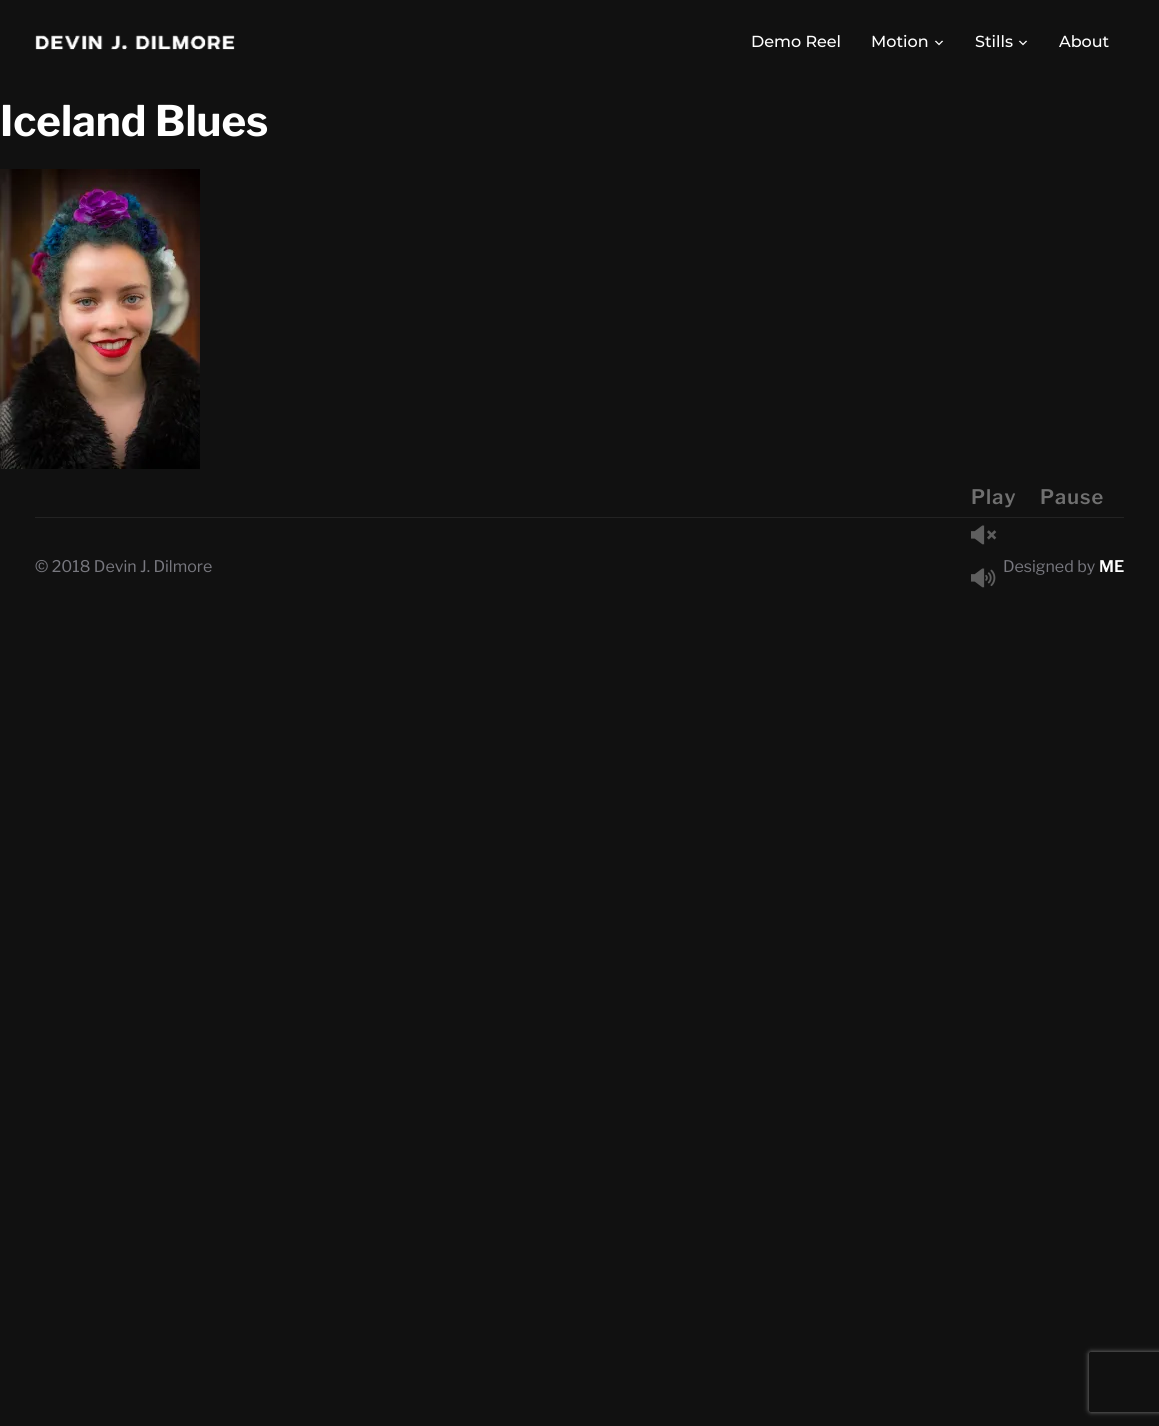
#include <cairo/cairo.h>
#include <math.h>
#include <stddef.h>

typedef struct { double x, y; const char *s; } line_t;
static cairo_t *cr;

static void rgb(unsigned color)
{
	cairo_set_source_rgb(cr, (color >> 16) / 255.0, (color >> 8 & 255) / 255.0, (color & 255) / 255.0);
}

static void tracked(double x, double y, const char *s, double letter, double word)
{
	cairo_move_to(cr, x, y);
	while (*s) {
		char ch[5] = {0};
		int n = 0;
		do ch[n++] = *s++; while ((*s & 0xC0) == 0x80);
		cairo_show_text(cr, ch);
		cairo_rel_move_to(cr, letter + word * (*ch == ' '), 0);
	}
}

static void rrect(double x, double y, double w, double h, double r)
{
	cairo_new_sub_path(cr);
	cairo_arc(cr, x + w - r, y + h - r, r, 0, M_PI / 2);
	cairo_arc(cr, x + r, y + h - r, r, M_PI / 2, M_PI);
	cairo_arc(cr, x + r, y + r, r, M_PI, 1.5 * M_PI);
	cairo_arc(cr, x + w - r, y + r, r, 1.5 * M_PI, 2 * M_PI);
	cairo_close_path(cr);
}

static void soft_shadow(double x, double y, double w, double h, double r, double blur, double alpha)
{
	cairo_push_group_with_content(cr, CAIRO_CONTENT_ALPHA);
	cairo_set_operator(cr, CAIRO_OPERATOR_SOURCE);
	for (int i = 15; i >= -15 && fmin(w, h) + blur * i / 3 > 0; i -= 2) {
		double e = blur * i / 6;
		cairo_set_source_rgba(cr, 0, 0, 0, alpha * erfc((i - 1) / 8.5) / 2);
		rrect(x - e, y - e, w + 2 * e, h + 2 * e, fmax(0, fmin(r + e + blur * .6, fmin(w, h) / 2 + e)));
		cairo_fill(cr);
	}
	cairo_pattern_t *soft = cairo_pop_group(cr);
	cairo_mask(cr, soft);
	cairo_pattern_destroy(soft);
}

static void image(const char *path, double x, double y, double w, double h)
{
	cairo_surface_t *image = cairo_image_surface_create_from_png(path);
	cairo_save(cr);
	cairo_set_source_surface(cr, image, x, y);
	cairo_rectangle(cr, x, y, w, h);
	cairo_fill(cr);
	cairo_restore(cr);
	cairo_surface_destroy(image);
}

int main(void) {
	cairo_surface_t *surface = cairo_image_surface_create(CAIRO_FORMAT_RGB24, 1159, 1426);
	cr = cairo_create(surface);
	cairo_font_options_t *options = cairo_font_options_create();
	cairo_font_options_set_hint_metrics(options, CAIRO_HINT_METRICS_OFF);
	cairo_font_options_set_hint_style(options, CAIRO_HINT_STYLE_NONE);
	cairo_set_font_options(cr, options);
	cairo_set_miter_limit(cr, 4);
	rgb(0x111111);
	cairo_paint(cr);
	image("img/1.png", 35, 35, 200, 15);
	image("img/2.png", 934, 40, 10, 6);
	image("img/2.png", 1018, 40, 10, 6);
	image("img/3.png", 971, 525, 26, 20);
	image("img/4.png", 971, 568, 25, 20);
	image("img/5.png", 0, 169, 200, 300);
	rgb(0x232323);
	cairo_rectangle(cr, 35, 517, 1089, 1);
	cairo_fill(cr);
	cairo_save(cr);
	cairo_set_fill_rule(cr, CAIRO_FILL_RULE_EVEN_ODD);
	cairo_new_path(cr);
	cairo_move_to(cr, 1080, 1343);
	cairo_line_to(cr, 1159, 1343);
	cairo_line_to(cr, 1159, 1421);
	cairo_line_to(cr, 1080, 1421);
	cairo_close_path(cr);
	cairo_move_to(cr, 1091, 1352);
	cairo_line_to(cr, 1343, 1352);
	cairo_curve_to(cr, 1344, 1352, 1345, 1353, 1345, 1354);
	cairo_line_to(cr, 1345, 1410);
	cairo_curve_to(cr, 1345, 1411, 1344, 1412, 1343, 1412);
	cairo_line_to(cr, 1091, 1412);
	cairo_curve_to(cr, 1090, 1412, 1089, 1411, 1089, 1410);
	cairo_line_to(cr, 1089, 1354);
	cairo_curve_to(cr, 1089, 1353, 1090, 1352, 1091, 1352);
	cairo_close_path(cr);
	cairo_clip(cr);
	rgb(0x808080);
	soft_shadow(1089, 1352, 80, 60, 2, 2.5, 1);
	cairo_restore(cr);
	cairo_select_font_face(cr, "Montserrat Medium", CAIRO_FONT_SLANT_NORMAL, CAIRO_FONT_WEIGHT_NORMAL);
	cairo_set_font_size(cr, 16);
	rgb(0xffffff);
	{
		static const line_t items[] = {
			{751, 47, "Demo Reel"},
			{871, 47, "Motion"},
			{975, 47, "Stills"},
			{1059, 47, "About"},
		};
		for (size_t i = 0; i < sizeof items / sizeof *items; i++) {
			cairo_move_to(cr, items[i].x, items[i].y);
			cairo_show_text(cr, items[i].s);
		}
	}
	cairo_select_font_face(cr, "Libre Franklin", CAIRO_FONT_SLANT_NORMAL, CAIRO_FONT_WEIGHT_BOLD);
	cairo_set_font_size(cr, 42);
	cairo_move_to(cr, 0, 136);
	cairo_show_text(cr, "Iceland Blues");
	cairo_select_font_face(cr, "Libre Franklin SemiBold", CAIRO_FONT_SLANT_NORMAL, CAIRO_FONT_WEIGHT_NORMAL);
	cairo_set_font_size(cr, 20);
	rgb(0x707070);
	tracked(971, 504, "Play", 1, 0);
	tracked(1040, 504, "Pause", 1, 0);
	cairo_select_font_face(cr, "Libre Franklin", CAIRO_FONT_SLANT_NORMAL, CAIRO_FONT_WEIGHT_NORMAL);
	cairo_set_font_size(cr, 16);
	rgb(0x78787f);
	cairo_move_to(cr, 35, 572);
	cairo_show_text(cr, "© 2018 Devin J. Dilmore");
	cairo_move_to(cr, 1003, 572);
	cairo_show_text(cr, "Designed by");
	cairo_select_font_face(cr, "Libre Franklin SemiBold", CAIRO_FONT_SLANT_NORMAL, CAIRO_FONT_WEIGHT_NORMAL);
	rgb(0xffffff);
	cairo_move_to(cr, 1099, 572);
	cairo_show_text(cr, "ME");
	cairo_surface_write_to_png(surface, "page.png");
	cairo_font_options_destroy(options);
	cairo_destroy(cr);
	cairo_surface_destroy(surface);
	return 0;
}
